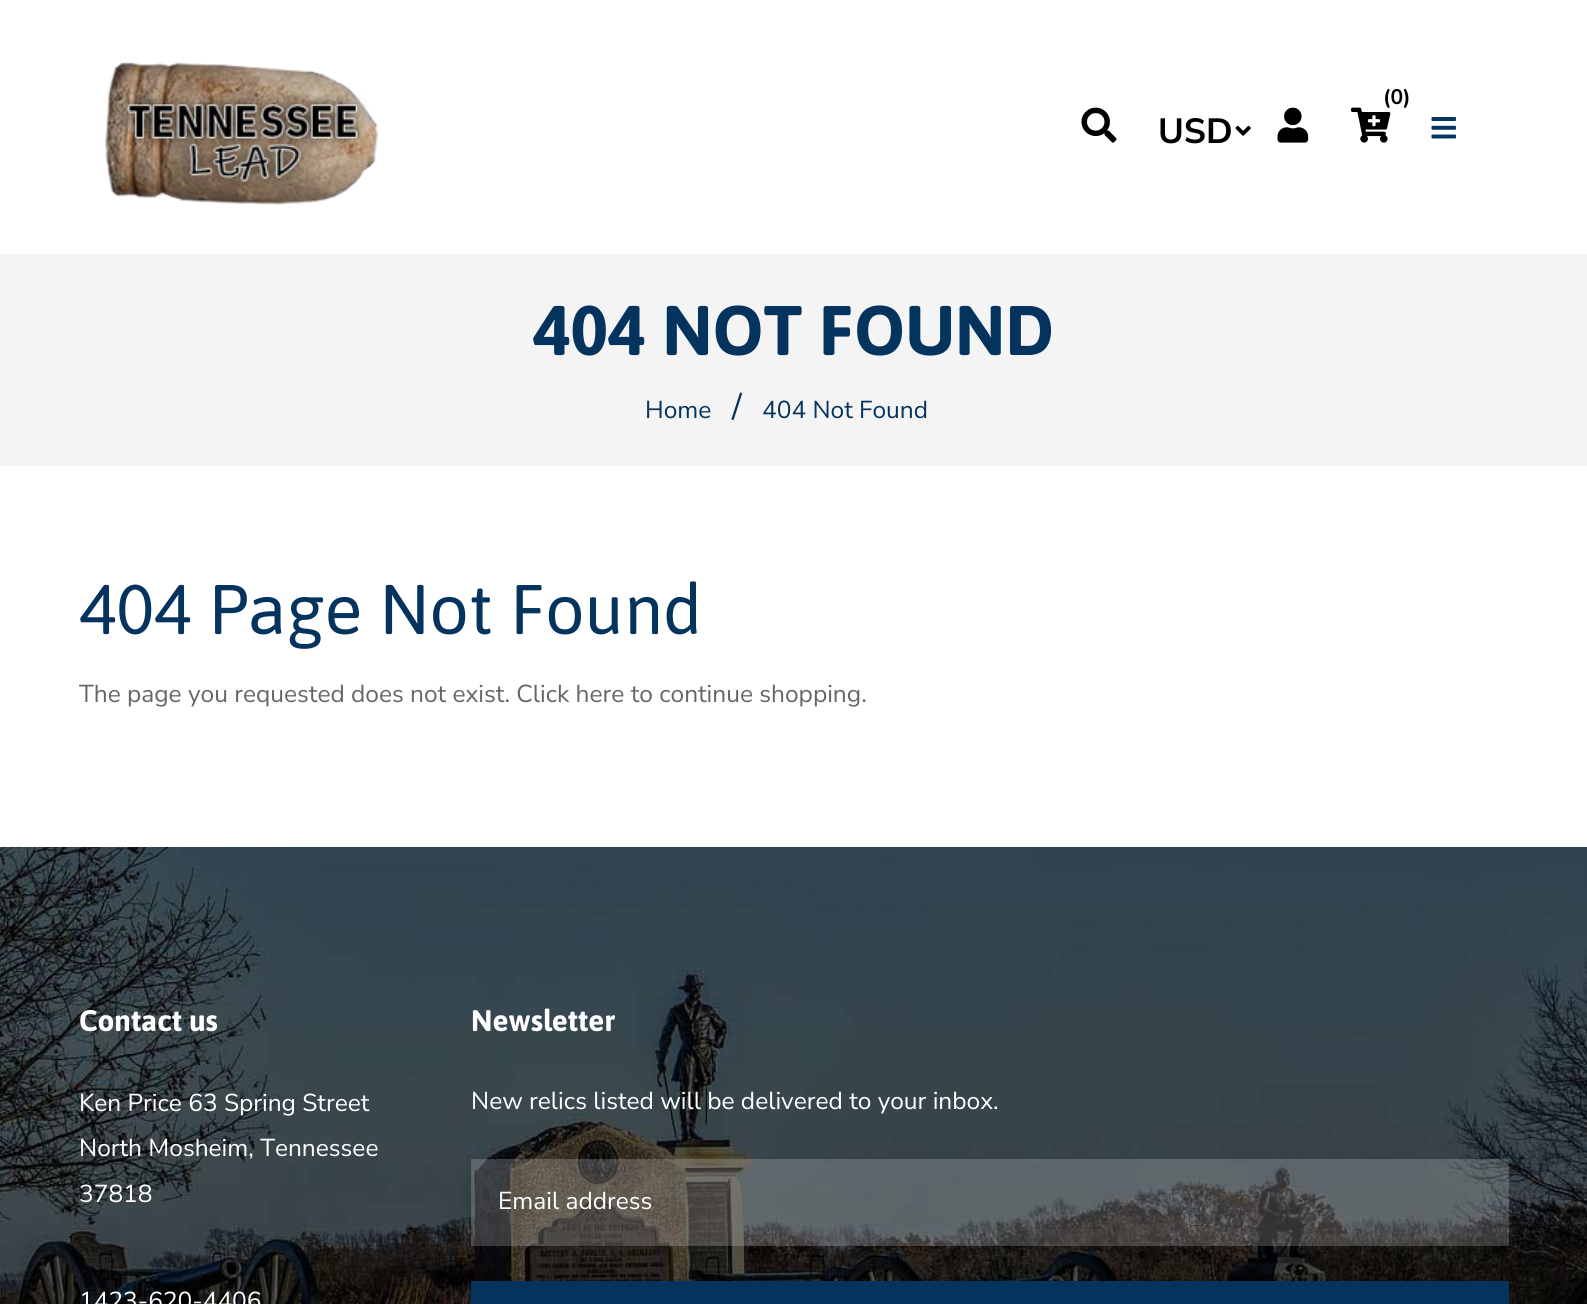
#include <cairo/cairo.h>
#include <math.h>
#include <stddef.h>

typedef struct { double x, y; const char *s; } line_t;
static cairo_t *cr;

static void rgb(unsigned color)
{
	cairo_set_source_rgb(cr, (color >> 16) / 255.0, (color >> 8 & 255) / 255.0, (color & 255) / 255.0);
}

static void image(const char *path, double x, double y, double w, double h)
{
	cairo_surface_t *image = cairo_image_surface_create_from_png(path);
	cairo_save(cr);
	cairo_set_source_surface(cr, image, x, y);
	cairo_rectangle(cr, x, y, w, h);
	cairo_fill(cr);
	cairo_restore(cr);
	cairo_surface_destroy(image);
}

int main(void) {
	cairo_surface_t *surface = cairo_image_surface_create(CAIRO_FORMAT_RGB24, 1587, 1304);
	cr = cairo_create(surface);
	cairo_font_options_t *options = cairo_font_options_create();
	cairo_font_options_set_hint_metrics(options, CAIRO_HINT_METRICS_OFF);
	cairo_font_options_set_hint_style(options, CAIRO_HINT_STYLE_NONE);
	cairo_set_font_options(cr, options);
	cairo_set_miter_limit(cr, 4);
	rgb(0xffffff);
	cairo_paint(cr);
	image("img/1.png", 105, 62, 274, 143);
	image("img/2.png", 1351, 107, 40, 36);
	image("img/3.png", 1081, 107, 36, 36);
	image("img/4.png", 1235, 125, 16, 11);
	image("img/5.png", 1277, 107, 32, 36);
	image("img/6.png", 1431, 117, 25, 22);
	rgb(0xf4f4f4);
	cairo_rectangle(cr, 0, 254, 1587, 212);
	cairo_fill(cr);
	image("img/7.png", 0, 847, 1587, 457);
	cairo_set_source_rgba(cr, 0.969, 0.969, 0.969, 0.2);
	cairo_rectangle(cr, 471, 1159, 1038, 87);
	cairo_fill(cr);
	rgb(0x04335e);
	cairo_rectangle(cr, 471, 1281, 1038, 23);
	cairo_fill(cr);
	cairo_select_font_face(cr, "Nunito Sans", CAIRO_FONT_SLANT_NORMAL, CAIRO_FONT_WEIGHT_BOLD);
	cairo_set_font_size(cr, 21);
	rgb(0x000000);
	cairo_move_to(cr, 1383, 104);
	cairo_show_text(cr, "(0)");
	cairo_set_font_size(cr, 35);
	cairo_move_to(cr, 1158, 143);
	cairo_show_text(cr, "USD");
	cairo_select_font_face(cr, "Asap", CAIRO_FONT_SLANT_NORMAL, CAIRO_FONT_WEIGHT_BOLD);
	cairo_set_font_size(cr, 70);
	rgb(0x04335e);
	cairo_move_to(cr, 533, 355);
	cairo_show_text(cr, "404 NOT FOUND");
	cairo_select_font_face(cr, "Nunito Sans", CAIRO_FONT_SLANT_NORMAL, CAIRO_FONT_WEIGHT_NORMAL);
	cairo_set_font_size(cr, 24.5);
	cairo_move_to(cr, 645, 418);
	cairo_show_text(cr, "Home");
	cairo_set_font_size(cr, 34);
	cairo_move_to(cr, 732, 418);
	cairo_show_text(cr, "/");
	cairo_set_font_size(cr, 24.5);
	cairo_move_to(cr, 762, 418);
	cairo_show_text(cr, "404 Not Found");
	cairo_select_font_face(cr, "Asap", CAIRO_FONT_SLANT_NORMAL, CAIRO_FONT_WEIGHT_NORMAL);
	cairo_set_font_size(cr, 70);
	cairo_move_to(cr, 79, 634);
	cairo_show_text(cr, "404 Page Not Found");
	cairo_select_font_face(cr, "Nunito Sans", CAIRO_FONT_SLANT_NORMAL, CAIRO_FONT_WEIGHT_NORMAL);
	cairo_set_font_size(cr, 24.5);
	rgb(0x666666);
	cairo_move_to(cr, 79, 702);
	cairo_show_text(cr, "The page you requested does not exist. Click here to continue shopping.");
	cairo_select_font_face(cr, "Asap", CAIRO_FONT_SLANT_NORMAL, CAIRO_FONT_WEIGHT_BOLD);
	cairo_set_font_size(cr, 29.75);
	rgb(0xffffff);
	cairo_move_to(cr, 79, 1031);
	cairo_show_text(cr, "Contact us");
	cairo_select_font_face(cr, "Nunito Sans", CAIRO_FONT_SLANT_NORMAL, CAIRO_FONT_WEIGHT_NORMAL);
	cairo_set_font_size(cr, 24.5);
	{
		static const line_t items[] = {
			{79, 1111, "Ken Price 63 Spring Street"},
			{79, 1156, "North Mosheim, Tennessee"},
			{79, 1202, "37818"},
			{79, 1309, "1423-620-4406"},
		};
		for (size_t i = 0; i < sizeof items / sizeof *items; i++) {
			cairo_move_to(cr, items[i].x, items[i].y);
			cairo_show_text(cr, items[i].s);
		}
	}
	cairo_select_font_face(cr, "Asap", CAIRO_FONT_SLANT_NORMAL, CAIRO_FONT_WEIGHT_BOLD);
	cairo_set_font_size(cr, 29.75);
	cairo_move_to(cr, 471, 1031);
	cairo_show_text(cr, "Newsletter");
	cairo_select_font_face(cr, "Nunito Sans", CAIRO_FONT_SLANT_NORMAL, CAIRO_FONT_WEIGHT_NORMAL);
	cairo_set_font_size(cr, 24.5);
	cairo_move_to(cr, 471, 1109);
	cairo_show_text(cr, "New relics listed will be delivered to your inbox.");
	cairo_move_to(cr, 498, 1209);
	cairo_show_text(cr, "Email address");
	cairo_surface_write_to_png(surface, "page.png");
	cairo_font_options_destroy(options);
	cairo_destroy(cr);
	cairo_surface_destroy(surface);
	return 0;
}
